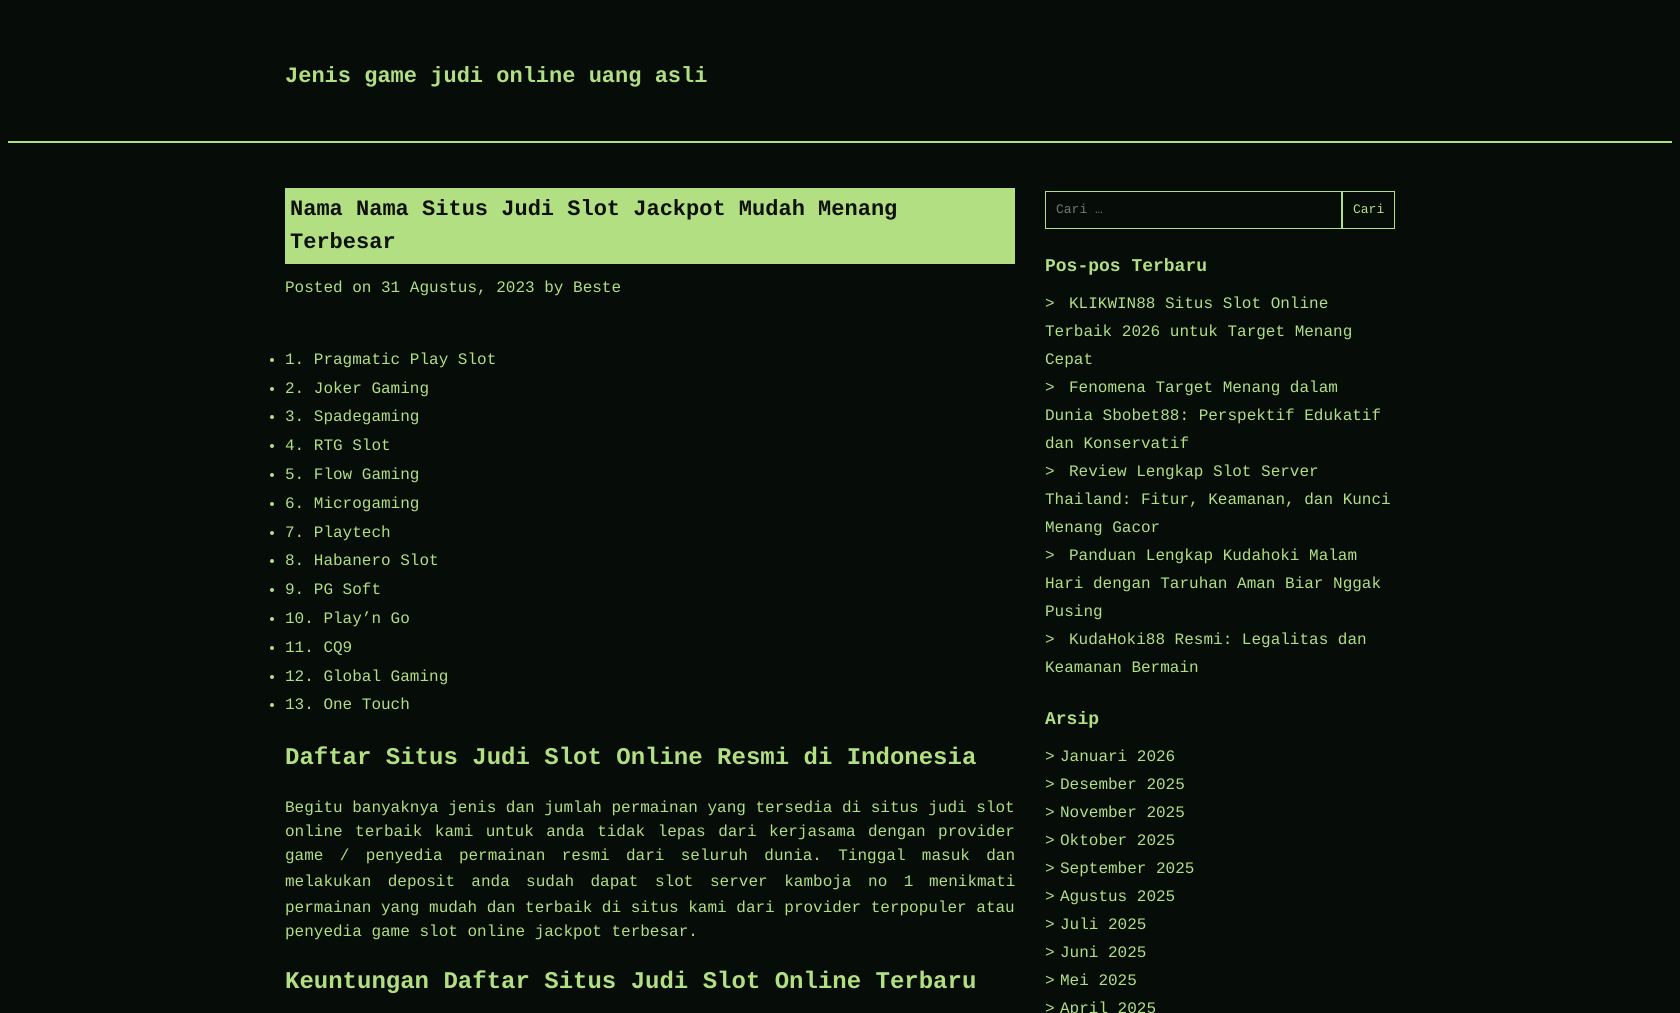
#include <cairo/cairo.h>
#include <math.h>
#include <stddef.h>

typedef struct { double x, y; const char *s; } line_t;
static cairo_t *cr;

static void rgb(unsigned color)
{
	cairo_set_source_rgb(cr, (color >> 16) / 255.0, (color >> 8 & 255) / 255.0, (color & 255) / 255.0);
}

static void tracked(double x, double y, const char *s, double letter, double word)
{
	cairo_move_to(cr, x, y);
	while (*s) {
		char ch[5] = {0};
		int n = 0;
		do ch[n++] = *s++; while ((*s & 0xC0) == 0x80);
		cairo_show_text(cr, ch);
		cairo_rel_move_to(cr, letter + word * (*ch == ' '), 0);
	}
}

int main(void) {
	cairo_surface_t *surface = cairo_image_surface_create(CAIRO_FORMAT_RGB24, 1680, 1013);
	cr = cairo_create(surface);
	cairo_font_options_t *options = cairo_font_options_create();
	cairo_font_options_set_hint_metrics(options, CAIRO_HINT_METRICS_OFF);
	cairo_font_options_set_hint_style(options, CAIRO_HINT_STYLE_NONE);
	cairo_set_font_options(cr, options);
	cairo_set_miter_limit(cr, 4);
	rgb(0x060c08);
	cairo_paint(cr);
	rgb(0xb2df82);
	cairo_rectangle(cr, 8, 141, 1664, 2);
	cairo_fill(cr);
	cairo_rectangle(cr, 285, 188, 730, 76);
	cairo_fill(cr);
	cairo_arc(cr, 272, 360, 2, 0, 2 * M_PI);
	cairo_fill(cr);
	cairo_arc(cr, 272, 389, 2, 0, 2 * M_PI);
	cairo_fill(cr);
	cairo_arc(cr, 272, 417, 2, 0, 2 * M_PI);
	cairo_fill(cr);
	cairo_arc(cr, 272, 446, 2, 0, 2 * M_PI);
	cairo_fill(cr);
	cairo_arc(cr, 272, 475, 2, 0, 2 * M_PI);
	cairo_fill(cr);
	cairo_arc(cr, 272, 504, 2, 0, 2 * M_PI);
	cairo_fill(cr);
	cairo_arc(cr, 272, 533, 2, 0, 2 * M_PI);
	cairo_fill(cr);
	cairo_arc(cr, 272, 561, 2, 0, 2 * M_PI);
	cairo_fill(cr);
	cairo_arc(cr, 272, 590, 2, 0, 2 * M_PI);
	cairo_fill(cr);
	cairo_arc(cr, 272, 619, 2, 0, 2 * M_PI);
	cairo_fill(cr);
	cairo_arc(cr, 272, 648, 2, 0, 2 * M_PI);
	cairo_fill(cr);
	cairo_arc(cr, 272, 677, 2, 0, 2 * M_PI);
	cairo_fill(cr);
	cairo_arc(cr, 272, 705, 2, 0, 2 * M_PI);
	cairo_fill(cr);
	cairo_rectangle(cr, 1045.5, 191.5, 296, 37);
	cairo_set_line_width(cr, 1);
	cairo_stroke(cr);
	cairo_rectangle(cr, 1342.5, 191.5, 52, 37);
	cairo_stroke(cr);
	cairo_select_font_face(cr, "Liberation Mono", CAIRO_FONT_SLANT_NORMAL, CAIRO_FONT_WEIGHT_BOLD);
	cairo_set_font_size(cr, 22);
	cairo_move_to(cr, 285, 82);
	cairo_show_text(cr, "Jenis game judi online uang asli");
	rgb(0x0f110c);
	cairo_move_to(cr, 290, 215);
	cairo_show_text(cr, "Nama Nama Situs Judi Slot Jackpot Mudah Menang");
	cairo_move_to(cr, 290, 248);
	cairo_show_text(cr, "Terbesar");
	cairo_select_font_face(cr, "Liberation Mono", CAIRO_FONT_SLANT_NORMAL, CAIRO_FONT_WEIGHT_NORMAL);
	cairo_set_font_size(cr, 16);
	rgb(0xb2df82);
	{
		static const line_t items[] = {
			{285, 292, "Posted on 31 Agustus, 2023 by Beste"},
			{285, 364, "1. Pragmatic Play Slot"},
			{285, 393, "2. Joker Gaming"},
			{285, 421, "3. Spadegaming"},
			{285, 450, "4. RTG Slot"},
			{285, 479, "5. Flow Gaming"},
			{285, 508, "6. Microgaming"},
			{285, 537, "7. Playtech"},
			{285, 565, "8. Habanero Slot"},
			{285, 594, "9. PG Soft"},
			{285, 623, "10. Play’n Go"},
			{285, 652, "11. CQ9"},
			{285, 681, "12. Global Gaming"},
			{285, 709, "13. One Touch"},
		};
		for (size_t i = 0; i < sizeof items / sizeof *items; i++) {
			cairo_move_to(cr, items[i].x, items[i].y);
			cairo_show_text(cr, items[i].s);
		}
	}
	cairo_select_font_face(cr, "Liberation Mono", CAIRO_FONT_SLANT_NORMAL, CAIRO_FONT_WEIGHT_BOLD);
	cairo_set_font_size(cr, 24);
	cairo_move_to(cr, 285, 764);
	cairo_show_text(cr, "Daftar Situs Judi Slot Online Resmi di Indonesia");
	cairo_select_font_face(cr, "Liberation Mono", CAIRO_FONT_SLANT_NORMAL, CAIRO_FONT_WEIGHT_NORMAL);
	cairo_set_font_size(cr, 16);
	cairo_move_to(cr, 285, 812);
	cairo_show_text(cr, "Begitu banyaknya jenis dan jumlah permainan yang tersedia di situs judi slot");
	tracked(285, 836, "online terbaik kami untuk anda tidak lepas dari kerjasama dengan provider", 0, 2.9);
	tracked(285, 860, "game / penyedia permainan resmi dari seluruh dunia. Tinggal masuk dan", 0, 6.75);
	tracked(285, 886, "melakukan deposit anda sudah dapat", 0, 6.75);
	tracked(655, 886, "slot server kamboja no 1", 0, 7);
	{
		static const line_t items[] = {
			{929, 886, "menikmati"},
			{285, 912, "permainan yang mudah dan terbaik di situs kami dari provider terpopuler atau"},
			{285, 936, "penyedia game slot online jackpot terbesar."},
		};
		for (size_t i = 0; i < sizeof items / sizeof *items; i++) {
			cairo_move_to(cr, items[i].x, items[i].y);
			cairo_show_text(cr, items[i].s);
		}
	}
	cairo_select_font_face(cr, "Liberation Mono", CAIRO_FONT_SLANT_NORMAL, CAIRO_FONT_WEIGHT_BOLD);
	cairo_set_font_size(cr, 24);
	cairo_move_to(cr, 285, 988);
	cairo_show_text(cr, "Keuntungan Daftar Situs Judi Slot Online Terbaru");
	cairo_select_font_face(cr, "Liberation Mono", CAIRO_FONT_SLANT_NORMAL, CAIRO_FONT_WEIGHT_NORMAL);
	cairo_set_font_size(cr, 13);
	rgb(0x757575);
	cairo_move_to(cr, 1056, 213);
	cairo_show_text(cr, "Cari …");
	rgb(0xb2df82);
	cairo_move_to(cr, 1353, 213);
	cairo_show_text(cr, "Cari");
	cairo_select_font_face(cr, "Liberation Mono", CAIRO_FONT_SLANT_NORMAL, CAIRO_FONT_WEIGHT_BOLD);
	cairo_set_font_size(cr, 18);
	cairo_move_to(cr, 1045, 271);
	cairo_show_text(cr, "Pos-pos Terbaru");
	cairo_select_font_face(cr, "Liberation Mono", CAIRO_FONT_SLANT_NORMAL, CAIRO_FONT_WEIGHT_NORMAL);
	cairo_set_font_size(cr, 16);
	{
		static const line_t items[] = {
			{1045, 308, ">"},
			{1069, 308, "KLIKWIN88 Situs Slot Online"},
			{1045, 336, "Terbaik 2026 untuk Target Menang"},
			{1045, 364, "Cepat"},
			{1045, 392, ">"},
			{1069, 392, "Fenomena Target Menang dalam"},
			{1045, 420, "Dunia Sbobet88: Perspektif Edukatif"},
			{1045, 448, "dan Konservatif"},
			{1045, 476, ">"},
			{1069, 476, "Review Lengkap Slot Server"},
			{1045, 504, "Thailand: Fitur, Keamanan, dan Kunci"},
			{1045, 532, "Menang Gacor"},
			{1045, 560, ">"},
			{1069, 560, "Panduan Lengkap Kudahoki Malam"},
			{1045, 588, "Hari dengan Taruhan Aman Biar Nggak"},
			{1045, 616, "Pusing"},
			{1045, 644, ">"},
			{1069, 644, "KudaHoki88 Resmi: Legalitas dan"},
			{1045, 672, "Keamanan Bermain"},
		};
		for (size_t i = 0; i < sizeof items / sizeof *items; i++) {
			cairo_move_to(cr, items[i].x, items[i].y);
			cairo_show_text(cr, items[i].s);
		}
	}
	cairo_select_font_face(cr, "Liberation Mono", CAIRO_FONT_SLANT_NORMAL, CAIRO_FONT_WEIGHT_BOLD);
	cairo_set_font_size(cr, 18);
	cairo_move_to(cr, 1045, 724);
	cairo_show_text(cr, "Arsip");
	cairo_select_font_face(cr, "Liberation Mono", CAIRO_FONT_SLANT_NORMAL, CAIRO_FONT_WEIGHT_NORMAL);
	cairo_set_font_size(cr, 16);
	{
		static const line_t items[] = {
			{1045, 761, ">"},
			{1060, 761, "Januari 2026"},
			{1045, 789, ">"},
			{1060, 789, "Desember 2025"},
			{1045, 817, ">"},
			{1060, 817, "November 2025"},
			{1045, 845, ">"},
			{1060, 845, "Oktober 2025"},
			{1045, 873, ">"},
			{1060, 873, "September 2025"},
			{1045, 901, ">"},
			{1060, 901, "Agustus 2025"},
			{1045, 929, ">"},
			{1060, 929, "Juli 2025"},
			{1045, 957, ">"},
			{1060, 957, "Juni 2025"},
			{1045, 985, ">"},
			{1060, 985, "Mei 2025"},
			{1045, 1013, ">"},
			{1060, 1013, "April 2025"},
		};
		for (size_t i = 0; i < sizeof items / sizeof *items; i++) {
			cairo_move_to(cr, items[i].x, items[i].y);
			cairo_show_text(cr, items[i].s);
		}
	}
	cairo_surface_write_to_png(surface, "page.png");
	cairo_font_options_destroy(options);
	cairo_destroy(cr);
	cairo_surface_destroy(surface);
	return 0;
}
